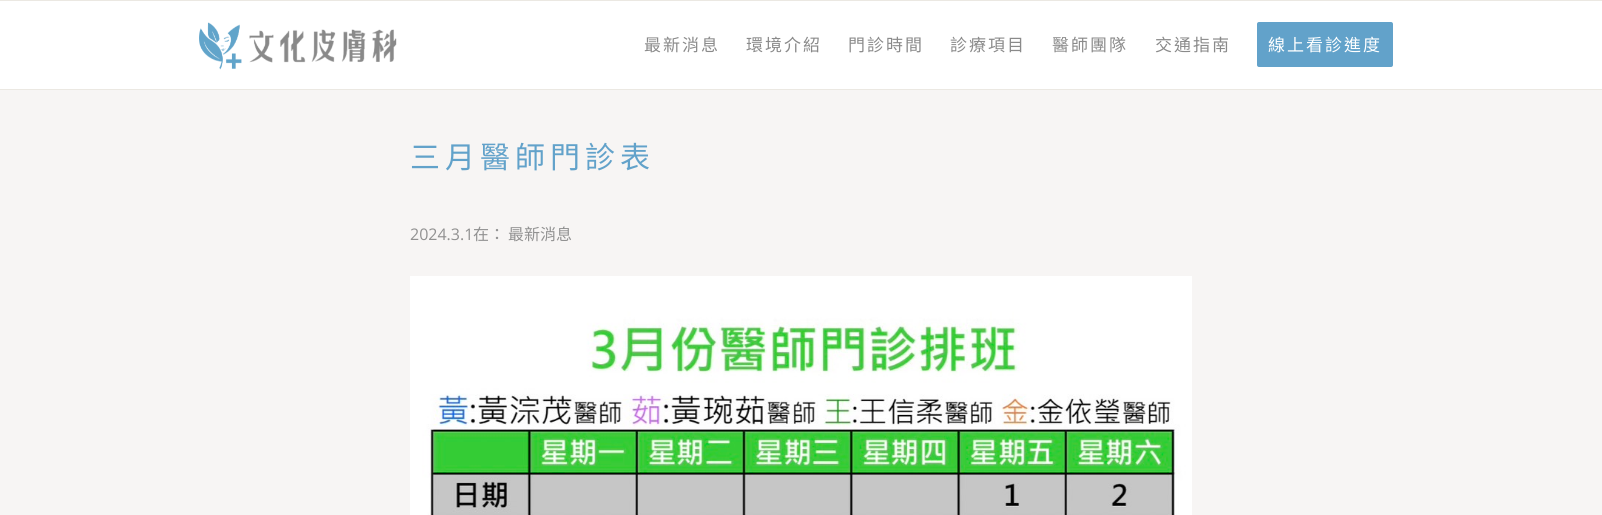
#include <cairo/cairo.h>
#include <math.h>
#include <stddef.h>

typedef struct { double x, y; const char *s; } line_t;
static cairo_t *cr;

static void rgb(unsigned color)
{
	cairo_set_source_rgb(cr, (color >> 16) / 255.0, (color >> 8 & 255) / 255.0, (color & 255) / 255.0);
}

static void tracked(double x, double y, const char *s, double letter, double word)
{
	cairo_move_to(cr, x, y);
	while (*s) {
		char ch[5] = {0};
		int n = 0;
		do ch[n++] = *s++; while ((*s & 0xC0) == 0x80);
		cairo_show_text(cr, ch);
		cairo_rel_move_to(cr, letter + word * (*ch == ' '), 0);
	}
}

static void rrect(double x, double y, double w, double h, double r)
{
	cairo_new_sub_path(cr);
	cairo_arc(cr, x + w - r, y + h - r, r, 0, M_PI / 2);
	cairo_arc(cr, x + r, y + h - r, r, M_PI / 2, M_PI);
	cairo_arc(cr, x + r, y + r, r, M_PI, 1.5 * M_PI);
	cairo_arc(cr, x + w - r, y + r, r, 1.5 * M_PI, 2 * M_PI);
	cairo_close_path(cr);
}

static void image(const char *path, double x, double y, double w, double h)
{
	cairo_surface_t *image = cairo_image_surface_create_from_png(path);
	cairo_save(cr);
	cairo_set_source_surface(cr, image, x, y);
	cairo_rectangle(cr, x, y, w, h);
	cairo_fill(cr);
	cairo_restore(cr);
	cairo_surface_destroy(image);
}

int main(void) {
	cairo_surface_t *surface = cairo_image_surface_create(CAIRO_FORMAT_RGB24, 1602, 515);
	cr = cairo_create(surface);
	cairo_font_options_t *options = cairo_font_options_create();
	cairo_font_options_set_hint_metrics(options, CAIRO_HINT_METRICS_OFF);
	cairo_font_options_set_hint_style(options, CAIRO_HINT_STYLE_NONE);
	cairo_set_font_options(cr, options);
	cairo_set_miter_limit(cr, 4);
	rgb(0xffffff);
	cairo_paint(cr);
	rgb(0xebe8e2);
	cairo_rectangle(cr, 0, 0, 1602, 1);
	cairo_fill(cr);
	cairo_rectangle(cr, 0, 89, 1602, 1);
	cairo_fill(cr);
	image("img/1.png", 199, 22, 198, 48);
	rgb(0x62a2ca);
	rrect(1258, 23, 134, 43, 1);
	cairo_fill_preserve(cr);
	cairo_stroke(cr);
	rgb(0xf7f5f4);
	cairo_rectangle(cr, 0, 90, 1602, 425);
	cairo_fill(cr);
	image("img/2.png", 410, 276, 782, 239);
	cairo_select_font_face(cr, "Noto Sans CJK TC", CAIRO_FONT_SLANT_NORMAL, CAIRO_FONT_WEIGHT_NORMAL);
	cairo_set_font_size(cr, 17);
	rgb(0x8a8a8a);
	{
		static const line_t items[] = {
			{644, 51, "最新消息"},
			{746, 51, "環境介紹"},
			{848, 51, "門診時間"},
			{950, 51, "診療項目"},
			{1052, 51, "醫師團隊"},
			{1155, 51, "交通指南"},
		};
		for (size_t i = 0; i < sizeof items / sizeof *items; i++) {
			tracked(items[i].x, items[i].y, items[i].s, 2, 0);
		}
	}
	rgb(0xffffff);
	tracked(1268, 51, "線上看診進度", 2, 0);
	cairo_set_font_size(cr, 30);
	rgb(0x62a2ca);
	tracked(410, 168, "三月醫師門診表", 5, 0);
	cairo_select_font_face(cr, "Open Sans", CAIRO_FONT_SLANT_NORMAL, CAIRO_FONT_WEIGHT_NORMAL);
	cairo_set_font_size(cr, 16);
	rgb(0x919191);
	cairo_move_to(cr, 410, 240);
	cairo_show_text(cr, "2024.3.1");
	cairo_select_font_face(cr, "Noto Sans CJK TC", CAIRO_FONT_SLANT_NORMAL, CAIRO_FONT_WEIGHT_NORMAL);
	cairo_move_to(cr, 473, 240);
	cairo_show_text(cr, "在：");
	cairo_move_to(cr, 508, 240);
	cairo_show_text(cr, "最新消息");
	cairo_surface_write_to_png(surface, "page.png");
	cairo_font_options_destroy(options);
	cairo_destroy(cr);
	cairo_surface_destroy(surface);
	return 0;
}
